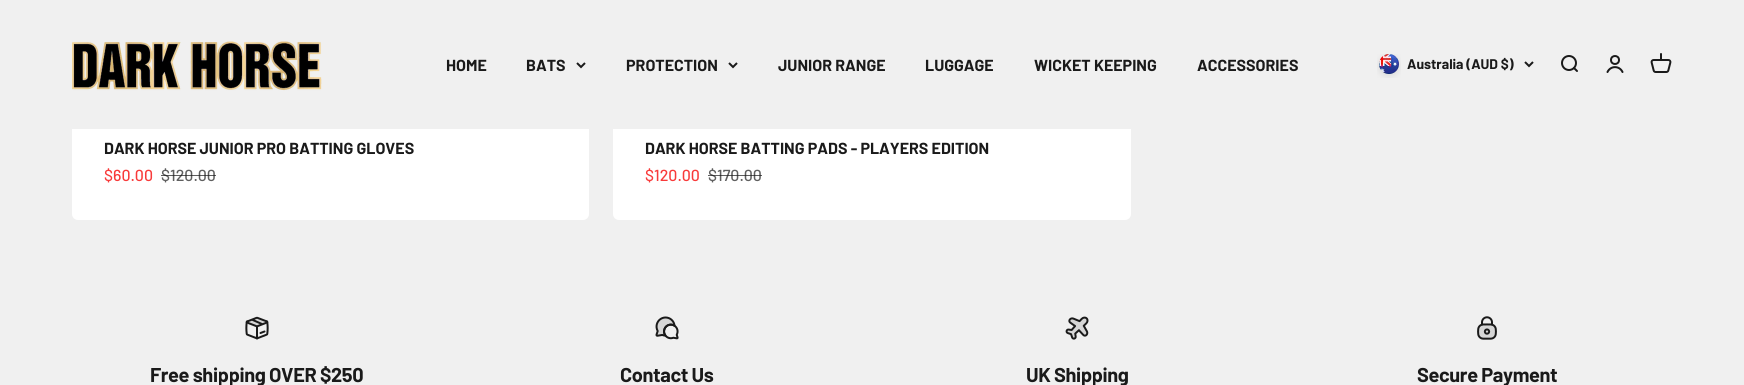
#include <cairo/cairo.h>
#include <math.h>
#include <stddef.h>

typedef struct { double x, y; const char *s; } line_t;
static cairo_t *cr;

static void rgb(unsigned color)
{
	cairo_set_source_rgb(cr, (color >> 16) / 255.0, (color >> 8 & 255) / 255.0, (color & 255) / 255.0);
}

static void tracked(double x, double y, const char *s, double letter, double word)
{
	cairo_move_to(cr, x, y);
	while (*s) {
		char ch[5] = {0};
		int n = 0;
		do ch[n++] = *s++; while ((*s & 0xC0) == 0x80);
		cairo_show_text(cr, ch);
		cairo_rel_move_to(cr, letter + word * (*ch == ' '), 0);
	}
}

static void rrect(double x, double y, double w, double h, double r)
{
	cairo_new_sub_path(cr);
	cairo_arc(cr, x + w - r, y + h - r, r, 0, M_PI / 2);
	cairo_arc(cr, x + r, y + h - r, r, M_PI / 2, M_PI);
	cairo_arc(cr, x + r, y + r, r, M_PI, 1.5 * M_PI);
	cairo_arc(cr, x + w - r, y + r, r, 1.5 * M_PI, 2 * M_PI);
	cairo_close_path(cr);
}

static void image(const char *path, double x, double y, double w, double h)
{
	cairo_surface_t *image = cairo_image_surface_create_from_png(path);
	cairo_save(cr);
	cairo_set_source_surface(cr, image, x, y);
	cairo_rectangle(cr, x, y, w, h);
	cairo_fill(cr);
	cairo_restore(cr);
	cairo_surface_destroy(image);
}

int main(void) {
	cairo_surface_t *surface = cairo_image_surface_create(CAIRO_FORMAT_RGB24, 1744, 385);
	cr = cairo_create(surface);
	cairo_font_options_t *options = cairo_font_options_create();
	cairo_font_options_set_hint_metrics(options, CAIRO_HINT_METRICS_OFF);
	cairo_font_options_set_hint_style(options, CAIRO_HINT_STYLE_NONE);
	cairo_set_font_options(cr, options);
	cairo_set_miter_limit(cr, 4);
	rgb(0xf0f0f0);
	cairo_paint(cr);
	rgb(0xffffff);
	rrect(72, -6, 517, 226, 6);
	cairo_fill(cr);
	rrect(613, -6, 518, 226, 6);
	cairo_fill(cr);
	rgb(0xf0f0f0);
	cairo_rectangle(cr, 72, 0, 1059, 129);
	cairo_fill(cr);
	image("img/1.png", 72, 41, 250, 50);
	cairo_new_path(cr);
	cairo_move_to(cr, 577, 63);
	cairo_line_to(cr, 581, 67);
	cairo_line_to(cr, 585, 63);
	rgb(0x1a1a1a);
	cairo_stroke(cr);
	cairo_new_path(cr);
	cairo_move_to(cr, 729, 63);
	cairo_line_to(cr, 733, 67);
	cairo_line_to(cr, 737, 63);
	cairo_stroke(cr);
	image("img/2.png", 1377, 54, 24, 24);
	cairo_new_path(cr);
	cairo_move_to(cr, 1525, 62);
	cairo_line_to(cr, 1529, 66);
	cairo_line_to(cr, 1533, 62);
	cairo_stroke(cr);
	image("img/3.png", 1561, 55, 17, 17);
	cairo_arc(cr, 1615, 60, 4, 0, 2 * M_PI);
	cairo_stroke(cr);
	cairo_new_path(cr);
	cairo_move_to(cr, 1607.5, 72);
	cairo_curve_to(cr, 1610.5, 65.5, 1619.5, 65.5, 1622.5, 72);
	cairo_set_line_cap(cr, CAIRO_LINE_CAP_ROUND);
	cairo_stroke(cr);
	image("img/4.png", 1650, 53, 22, 20);
	image("img/5.png", 245, 316, 24, 24);
	image("img/6.png", 655, 316, 24, 24);
	image("img/7.png", 1065, 316, 24, 24);
	image("img/8.png", 1477, 316, 20, 24);
	cairo_select_font_face(cr, "Barlow", CAIRO_FONT_SLANT_NORMAL, CAIRO_FONT_WEIGHT_BOLD);
	cairo_set_font_size(cr, 16);
	{
		static const line_t items[] = {
			{446, 71, "HOME"},
			{526, 71, "BATS"},
			{626, 71, "PROTECTION"},
			{778, 71, "JUNIOR RANGE"},
			{925, 71, "LUGGAGE"},
			{1034, 71, "WICKET KEEPING"},
			{1197, 71, "ACCESSORIES"},
		};
		for (size_t i = 0; i < sizeof items / sizeof *items; i++) {
			cairo_move_to(cr, items[i].x, items[i].y);
			cairo_show_text(cr, items[i].s);
		}
	}
	cairo_set_font_size(cr, 14);
	cairo_move_to(cr, 1407, 69);
	cairo_show_text(cr, "Australia (AUD $)");
	cairo_set_font_size(cr, 16);
	cairo_move_to(cr, 104, 154);
	cairo_show_text(cr, "DARK HORSE JUNIOR PRO BATTING GLOVES");
	cairo_select_font_face(cr, "Barlow Medium", CAIRO_FONT_SLANT_NORMAL, CAIRO_FONT_WEIGHT_NORMAL);
	rgb(0xf83a3a);
	cairo_move_to(cr, 104, 181);
	cairo_show_text(cr, "$60.00");
	rgb(0x5f5f5f);
	cairo_move_to(cr, 161, 181);
	cairo_show_text(cr, "$120.00");
	cairo_set_source_rgba(cr, 0.102, 0.102, 0.102, 0.7);
	cairo_rectangle(cr, 161, 175, 55, 1);
	cairo_fill(cr);
	cairo_select_font_face(cr, "Barlow", CAIRO_FONT_SLANT_NORMAL, CAIRO_FONT_WEIGHT_BOLD);
	rgb(0x1a1a1a);
	cairo_move_to(cr, 645, 154);
	cairo_show_text(cr, "DARK HORSE BATTING PADS - PLAYERS EDITION");
	cairo_select_font_face(cr, "Barlow Medium", CAIRO_FONT_SLANT_NORMAL, CAIRO_FONT_WEIGHT_NORMAL);
	rgb(0xf83a3a);
	cairo_move_to(cr, 645, 181);
	cairo_show_text(cr, "$120.00");
	rgb(0x5f5f5f);
	cairo_move_to(cr, 708, 181);
	cairo_show_text(cr, "$170.00");
	cairo_set_source_rgba(cr, 0.102, 0.102, 0.102, 0.7);
	cairo_rectangle(cr, 708, 175, 54, 1);
	cairo_fill(cr);
	cairo_select_font_face(cr, "Barlow", CAIRO_FONT_SLANT_NORMAL, CAIRO_FONT_WEIGHT_BOLD);
	cairo_set_font_size(cr, 20);
	rgb(0x1a1a1a);
	{
		static const line_t items[] = {
			{150, 382, "Free shipping OVER $250"},
			{620, 382, "Contact Us"},
			{1026, 382, "UK Shipping"},
			{1417, 382, "Secure Payment"},
		};
		for (size_t i = 0; i < sizeof items / sizeof *items; i++) {
			tracked(items[i].x, items[i].y, items[i].s, -0.4, 0);
		}
	}
	cairo_surface_write_to_png(surface, "page.png");
	cairo_font_options_destroy(options);
	cairo_destroy(cr);
	cairo_surface_destroy(surface);
	return 0;
}
